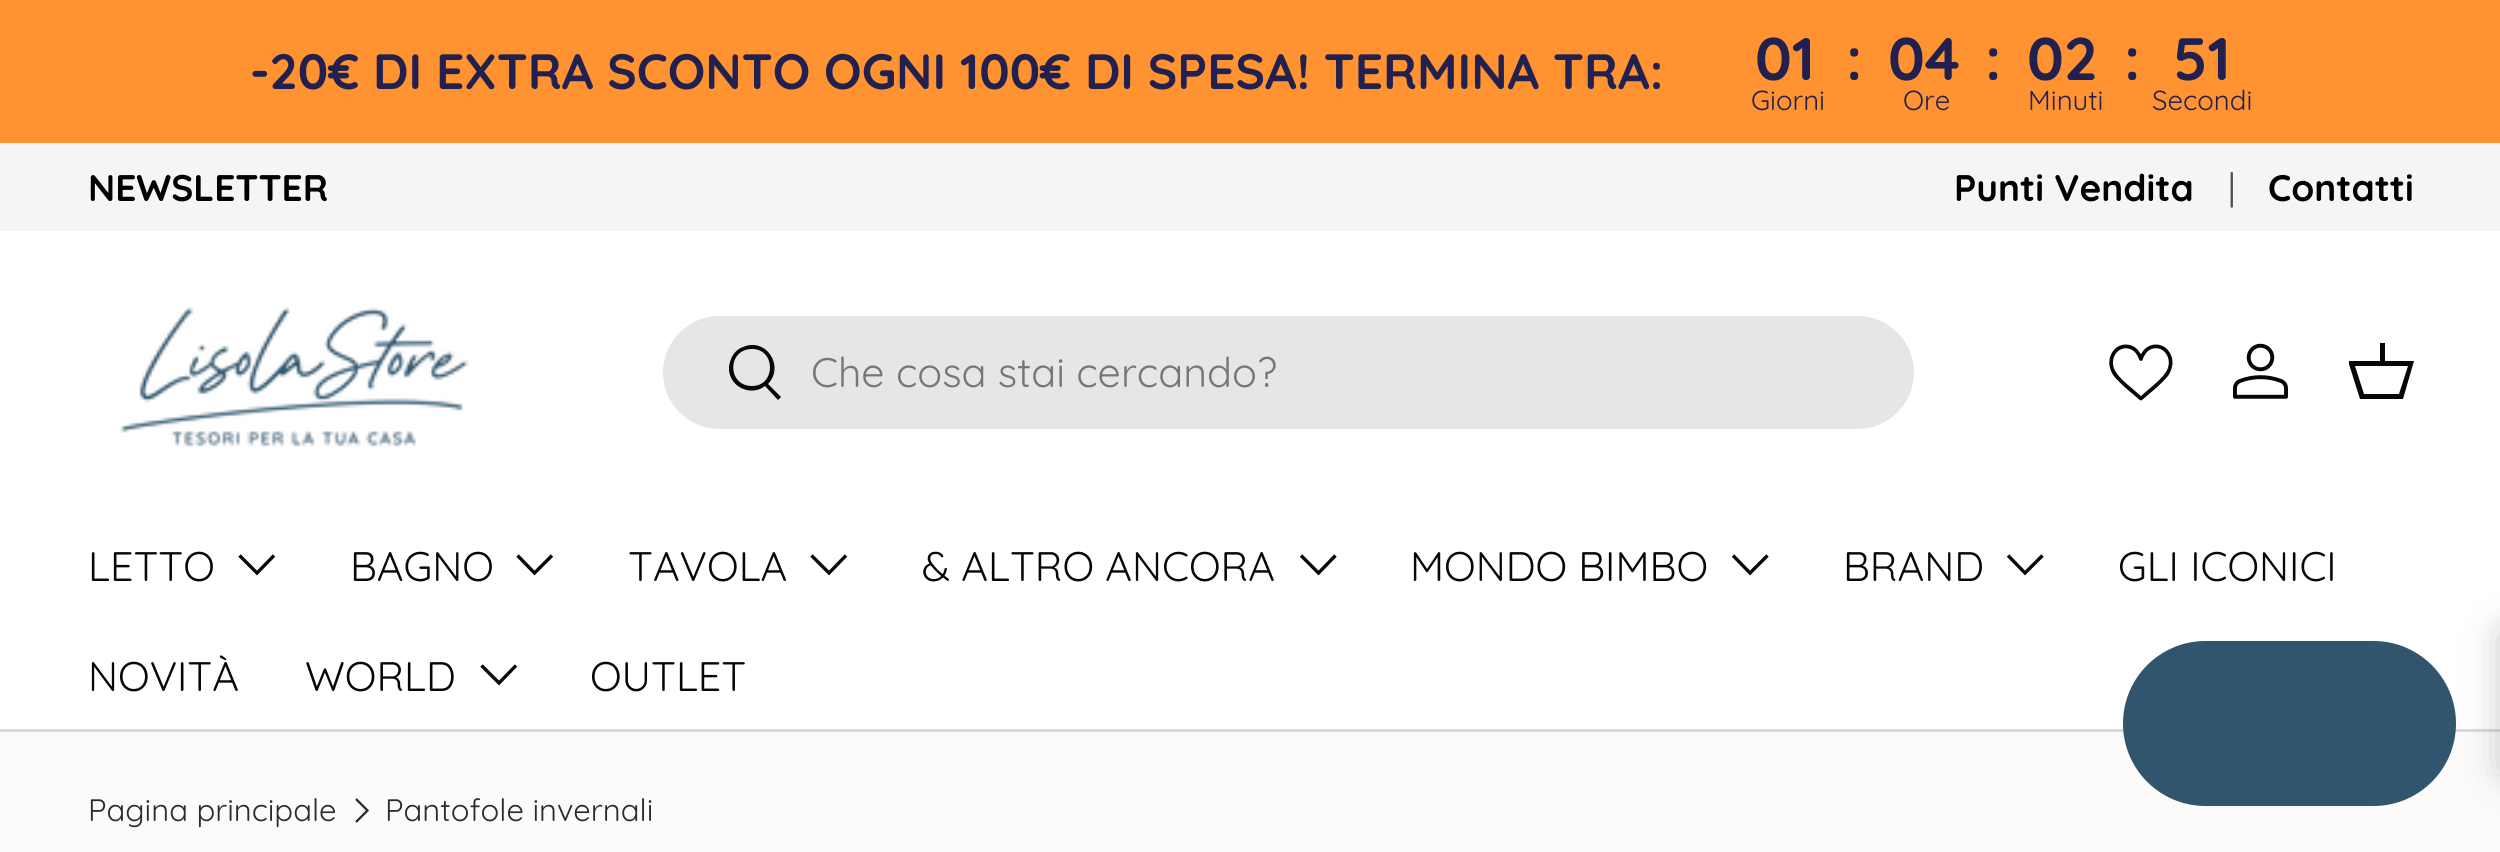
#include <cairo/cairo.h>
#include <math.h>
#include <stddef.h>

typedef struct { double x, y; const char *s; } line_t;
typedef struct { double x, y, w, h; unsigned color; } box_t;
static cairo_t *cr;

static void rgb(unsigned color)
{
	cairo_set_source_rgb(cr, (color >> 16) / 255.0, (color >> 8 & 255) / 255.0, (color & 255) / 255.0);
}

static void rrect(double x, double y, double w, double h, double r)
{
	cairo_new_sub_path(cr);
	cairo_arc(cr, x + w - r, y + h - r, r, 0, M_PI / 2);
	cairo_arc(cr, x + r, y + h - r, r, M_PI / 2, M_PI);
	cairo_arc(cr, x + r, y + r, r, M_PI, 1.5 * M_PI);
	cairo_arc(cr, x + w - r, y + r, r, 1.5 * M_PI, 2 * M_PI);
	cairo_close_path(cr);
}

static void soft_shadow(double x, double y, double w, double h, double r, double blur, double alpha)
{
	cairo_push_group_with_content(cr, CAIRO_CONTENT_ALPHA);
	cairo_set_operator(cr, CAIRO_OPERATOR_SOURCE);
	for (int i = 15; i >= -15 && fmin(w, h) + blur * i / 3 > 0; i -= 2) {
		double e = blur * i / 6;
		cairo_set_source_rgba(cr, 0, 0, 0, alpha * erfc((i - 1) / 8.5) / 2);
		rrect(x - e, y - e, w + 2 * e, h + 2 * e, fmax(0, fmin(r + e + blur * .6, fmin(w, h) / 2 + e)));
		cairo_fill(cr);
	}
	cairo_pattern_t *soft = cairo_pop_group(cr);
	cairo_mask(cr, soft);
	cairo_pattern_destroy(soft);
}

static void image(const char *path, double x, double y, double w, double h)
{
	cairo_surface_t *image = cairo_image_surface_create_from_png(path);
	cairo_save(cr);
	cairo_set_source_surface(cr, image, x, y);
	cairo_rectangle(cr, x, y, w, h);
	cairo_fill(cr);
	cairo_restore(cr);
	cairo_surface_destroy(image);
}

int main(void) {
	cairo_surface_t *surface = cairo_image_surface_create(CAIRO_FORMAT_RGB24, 2500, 852);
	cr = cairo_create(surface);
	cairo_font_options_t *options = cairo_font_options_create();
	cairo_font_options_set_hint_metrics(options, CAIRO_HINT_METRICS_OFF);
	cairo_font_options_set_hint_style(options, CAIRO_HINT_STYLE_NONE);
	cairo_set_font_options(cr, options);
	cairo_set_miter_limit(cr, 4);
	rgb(0xfdfafa);
	cairo_paint(cr);
	{
		static const box_t items[] = {
			{0, 0, 2500, 143, 0xff9331},
			{0, 143, 2500, 88, 0xf5f5f5},
			{0, 231, 2500, 498, 0xffffff},
			{0, 729, 2500, 3, 0xdadada},
		};
		for (size_t i = 0; i < sizeof items / sizeof *items; i++) {
			rgb(items[i].color);
			cairo_rectangle(cr, items[i].x, items[i].y, items[i].w, items[i].h);
			cairo_fill(cr);
		}
	}
	image("img/1.png", 120, 307, 349, 140);
	rgb(0xe6e6e6);
	rrect(663, 316, 1251, 113, 56.5);
	cairo_fill(cr);
	rgb(0x070707);
	cairo_new_path(cr);
	cairo_move_to(cr, 768, 384);
	cairo_line_to(cr, 781, 397);
	cairo_line_to(cr, 778, 400);
	cairo_line_to(cr, 765, 386);
	cairo_curve_to(cr, 755, 394, 740, 391, 733, 381);
	cairo_curve_to(cr, 728, 374, 728, 366, 731, 359);
	cairo_curve_to(cr, 733, 354, 737, 349, 743, 347);
	cairo_curve_to(cr, 766, 337, 785, 366, 768, 384);
	cairo_close_path(cr);
	cairo_move_to(cr, 752, 386);
	cairo_curve_to(cr, 776, 386, 776, 349, 752, 349);
	cairo_curve_to(cr, 727, 349, 727, 386, 752, 386);
	cairo_close_path(cr);
	cairo_fill(cr);
	image("img/2.png", 2109, 344, 64, 57);
	image("img/3.png", 2233, 343, 55, 56);
	cairo_save(cr);
	cairo_rectangle(cr, 2349, 338, 66, 66);
	cairo_clip(cr);
	cairo_new_path(cr);
	cairo_move_to(cr, 2380, 361);
	cairo_line_to(cr, 2380, 343);
	cairo_line_to(cr, 2385, 343);
	cairo_line_to(cr, 2385, 361);
	cairo_line_to(cr, 2414, 361);
	cairo_line_to(cr, 2403, 399);
	cairo_line_to(cr, 2360, 399);
	cairo_line_to(cr, 2348, 361);
	cairo_close_path(cr);
	cairo_move_to(cr, 2355, 366);
	cairo_line_to(cr, 2364, 394);
	cairo_line_to(cr, 2399, 394);
	cairo_line_to(cr, 2408, 366);
	cairo_close_path(cr);
	cairo_fill(cr);
	cairo_restore(cr);
	cairo_new_path(cr);
	cairo_move_to(cr, 274, 555.5);
	cairo_line_to(cr, 257, 573);
	cairo_line_to(cr, 239.5, 555.5);
	cairo_set_line_width(cr, 3.4);
	cairo_stroke(cr);
	cairo_new_path(cr);
	cairo_move_to(cr, 552, 555.5);
	cairo_line_to(cr, 534.5, 573);
	cairo_line_to(cr, 517.5, 555.5);
	cairo_stroke(cr);
	cairo_new_path(cr);
	cairo_move_to(cr, 846, 555.5);
	cairo_line_to(cr, 829, 573);
	cairo_line_to(cr, 811.5, 555.5);
	cairo_stroke(cr);
	cairo_new_path(cr);
	cairo_move_to(cr, 1335.5, 555.5);
	cairo_line_to(cr, 1318.5, 573);
	cairo_line_to(cr, 1301, 555.5);
	cairo_stroke(cr);
	cairo_new_path(cr);
	cairo_move_to(cr, 1767.5, 555.5);
	cairo_line_to(cr, 1750, 573);
	cairo_line_to(cr, 1733, 555.5);
	cairo_stroke(cr);
	cairo_new_path(cr);
	cairo_move_to(cr, 2042.5, 555.5);
	cairo_line_to(cr, 2025, 573);
	cairo_line_to(cr, 2008, 555.5);
	cairo_stroke(cr);
	cairo_new_path(cr);
	cairo_move_to(cr, 516, 665.5);
	cairo_line_to(cr, 499, 683);
	cairo_line_to(cr, 481.5, 665.5);
	cairo_stroke(cr);
	rgb(0x30556d);
	rrect(2123, 641, 333, 165, 82.5);
	cairo_fill(cr);
	rgb(0x757575);
	soft_shadow(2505, 633, 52, 137, 0, 19, 0.5);
	cairo_new_path(cr);
	cairo_move_to(cr, 356, 799);
	cairo_line_to(cr, 367.5, 810.5);
	cairo_line_to(cr, 356, 822);
	rgb(0x2a2b2a);
	cairo_set_line_width(cr, 2.3);
	cairo_stroke(cr);
	cairo_select_font_face(cr, "Quicksand", CAIRO_FONT_SLANT_NORMAL, CAIRO_FONT_WEIGHT_BOLD);
	cairo_set_font_size(cr, 49.5);
	rgb(0x22204f);
	cairo_move_to(cr, 250, 89);
	cairo_show_text(cr, "-20€ DI EXTRA SCONTO OGNI 100€ DI SPESA! TERMINA TRA:");
	cairo_set_font_size(cr, 60);
	{
		static const line_t items[] = {
			{1755, 80, "01"},
			{1846, 80, ":"},
			{1888, 80, "04"},
			{1985, 80, ":"},
			{2027, 80, "02"},
			{2124, 80, ":"},
			{2173, 80, "51"},
		};
		for (size_t i = 0; i < sizeof items / sizeof *items; i++) {
			cairo_move_to(cr, items[i].x, items[i].y);
			cairo_show_text(cr, items[i].s);
		}
	}
	cairo_select_font_face(cr, "Quicksand", CAIRO_FONT_SLANT_NORMAL, CAIRO_FONT_WEIGHT_NORMAL);
	cairo_set_font_size(cr, 27.5);
	{
		static const line_t items[] = {
			{1751, 110, "Giorni"},
			{1903, 110, "Ore"},
			{2028, 110, "Minuti"},
			{2152, 110, "Secondi"},
		};
		for (size_t i = 0; i < sizeof items / sizeof *items; i++) {
			cairo_move_to(cr, items[i].x, items[i].y);
			cairo_show_text(cr, items[i].s);
		}
	}
	cairo_select_font_face(cr, "Quicksand", CAIRO_FONT_SLANT_NORMAL, CAIRO_FONT_WEIGHT_BOLD);
	cairo_set_font_size(cr, 37);
	rgb(0x000000);
	cairo_move_to(cr, 88, 201);
	cairo_show_text(cr, "NEWSLETTER");
	cairo_move_to(cr, 1954, 201);
	cairo_show_text(cr, "Punti Vendita");
	cairo_select_font_face(cr, "Quicksand", CAIRO_FONT_SLANT_NORMAL, CAIRO_FONT_WEIGHT_NORMAL);
	rgb(0x4a4a4a);
	cairo_move_to(cr, 2228, 201);
	cairo_show_text(cr, "|");
	cairo_select_font_face(cr, "Quicksand", CAIRO_FONT_SLANT_NORMAL, CAIRO_FONT_WEIGHT_BOLD);
	rgb(0x000000);
	cairo_move_to(cr, 2268, 201);
	cairo_show_text(cr, "Contatti");
	cairo_select_font_face(cr, "Quicksand", CAIRO_FONT_SLANT_NORMAL, CAIRO_FONT_WEIGHT_NORMAL);
	cairo_set_font_size(cr, 41.25);
	rgb(0x777777);
	cairo_move_to(cr, 811, 387);
	cairo_show_text(cr, "Che cosa stai cercando?");
	rgb(0x070707);
	{
		static const line_t items[] = {
			{88, 581, "LETTO"},
			{350, 581, "BAGNO"},
			{628, 581, "TAVOLA"},
			{922, 581, "& ALTRO ANCORA"},
			{1410, 581, "MONDO BIMBO"},
			{1843, 581, "BRAND"},
			{2118, 581, "GLI ICONICI"},
			{88, 691, "NOVITÀ"},
			{305, 691, "WORLD"},
			{590, 691, "OUTLET"},
		};
		for (size_t i = 0; i < sizeof items / sizeof *items; i++) {
			cairo_move_to(cr, items[i].x, items[i].y);
			cairo_show_text(cr, items[i].s);
		}
	}
	cairo_set_font_size(cr, 31);
	rgb(0x2a2b2a);
	cairo_move_to(cr, 88, 821);
	cairo_show_text(cr, "Pagina principale");
	cairo_move_to(cr, 385, 821);
	cairo_show_text(cr, "Pantofole invernali");
	cairo_surface_write_to_png(surface, "page.png");
	cairo_font_options_destroy(options);
	cairo_destroy(cr);
	cairo_surface_destroy(surface);
	return 0;
}
